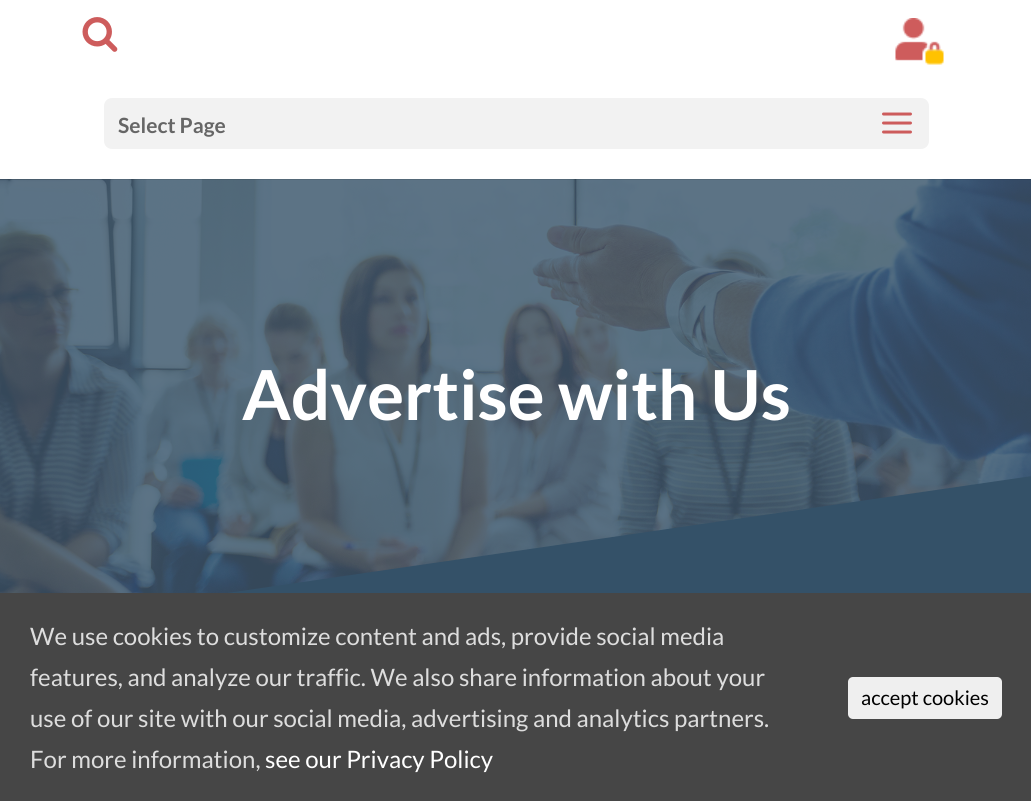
#include <cairo/cairo.h>
#include <math.h>
#include <stddef.h>

typedef struct { double x, y; const char *s; } line_t;
static cairo_t *cr;

static void rgb(unsigned color)
{
	cairo_set_source_rgb(cr, (color >> 16) / 255.0, (color >> 8 & 255) / 255.0, (color & 255) / 255.0);
}

static void rrect(double x, double y, double w, double h, double r)
{
	cairo_new_sub_path(cr);
	cairo_arc(cr, x + w - r, y + h - r, r, 0, M_PI / 2);
	cairo_arc(cr, x + r, y + h - r, r, M_PI / 2, M_PI);
	cairo_arc(cr, x + r, y + r, r, M_PI, 1.5 * M_PI);
	cairo_arc(cr, x + w - r, y + r, r, 1.5 * M_PI, 2 * M_PI);
	cairo_close_path(cr);
}

static void image(const char *path, double x, double y, double w, double h)
{
	cairo_surface_t *image = cairo_image_surface_create_from_png(path);
	cairo_save(cr);
	cairo_set_source_surface(cr, image, x, y);
	cairo_rectangle(cr, x, y, w, h);
	cairo_fill(cr);
	cairo_restore(cr);
	cairo_surface_destroy(image);
}

int main(void) {
	cairo_surface_t *surface = cairo_image_surface_create(CAIRO_FORMAT_RGB24, 1031, 801);
	cr = cairo_create(surface);
	cairo_font_options_t *options = cairo_font_options_create();
	cairo_font_options_set_hint_metrics(options, CAIRO_HINT_METRICS_OFF);
	cairo_font_options_set_hint_style(options, CAIRO_HINT_STYLE_NONE);
	cairo_set_font_options(cr, options);
	cairo_set_miter_limit(cr, 4);
	rgb(0xffffff);
	cairo_paint(cr);
	image("img/4.png", 0, 179, 1031, 414);
	cairo_set_source_rgba(cr, 0, 0, 0, 0.1);
	cairo_rectangle(cr, 0, 179, 1031, 1);
	cairo_fill(cr);
	image("img/1.png", 82, 17, 36, 35);
	image("img/2.png", 895, 18, 49, 47);
	rgb(0xf2f2f2);
	rrect(104, 98, 825, 51, 8);
	cairo_fill(cr);
	image("img/3.png", 882, 112, 30, 22);
	rgb(0x345168);
	cairo_new_path(cr);
	cairo_move_to(cr, 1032, 476);
	cairo_line_to(cr, 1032, 626);
	cairo_line_to(cr, 0, 626);
	cairo_close_path(cr);
	cairo_fill(cr);
	rgb(0x464646);
	cairo_rectangle(cr, 0, 593, 1031, 208);
	cairo_fill(cr);
	rgb(0xefefef);
	rrect(848, 677, 154, 42, 5);
	cairo_fill(cr);
	cairo_select_font_face(cr, "Lato", CAIRO_FONT_SLANT_NORMAL, CAIRO_FONT_WEIGHT_BOLD);
	cairo_set_font_size(cr, 21);
	rgb(0x666666);
	cairo_move_to(cr, 118, 133);
	cairo_show_text(cr, "Select Page");
	cairo_set_font_size(cr, 69);
	rgb(0xffffff);
	cairo_move_to(cr, 242, 420);
	cairo_show_text(cr, "Advertise with Us");
	cairo_select_font_face(cr, "Lato", CAIRO_FONT_SLANT_NORMAL, CAIRO_FONT_WEIGHT_NORMAL);
	cairo_set_font_size(cr, 24);
	rgb(0xdddddd);
	{
		static const line_t items[] = {
			{30, 645, "We use cookies to customize content and ads, provide social media"},
			{30, 686, "features, and analyze our traffic. We also share information about your"},
			{30, 727, "use of our site with our social media, advertising and analytics partners."},
			{30, 768, "For more information,"},
		};
		for (size_t i = 0; i < sizeof items / sizeof *items; i++) {
			cairo_move_to(cr, items[i].x, items[i].y);
			cairo_show_text(cr, items[i].s);
		}
	}
	rgb(0xffffff);
	cairo_move_to(cr, 265, 768);
	cairo_show_text(cr, "see our Privacy Policy");
	cairo_set_font_size(cr, 20);
	rgb(0x000000);
	cairo_move_to(cr, 861, 705);
	cairo_show_text(cr, "accept cookies");
	cairo_surface_write_to_png(surface, "page.png");
	cairo_font_options_destroy(options);
	cairo_destroy(cr);
	cairo_surface_destroy(surface);
	return 0;
}
